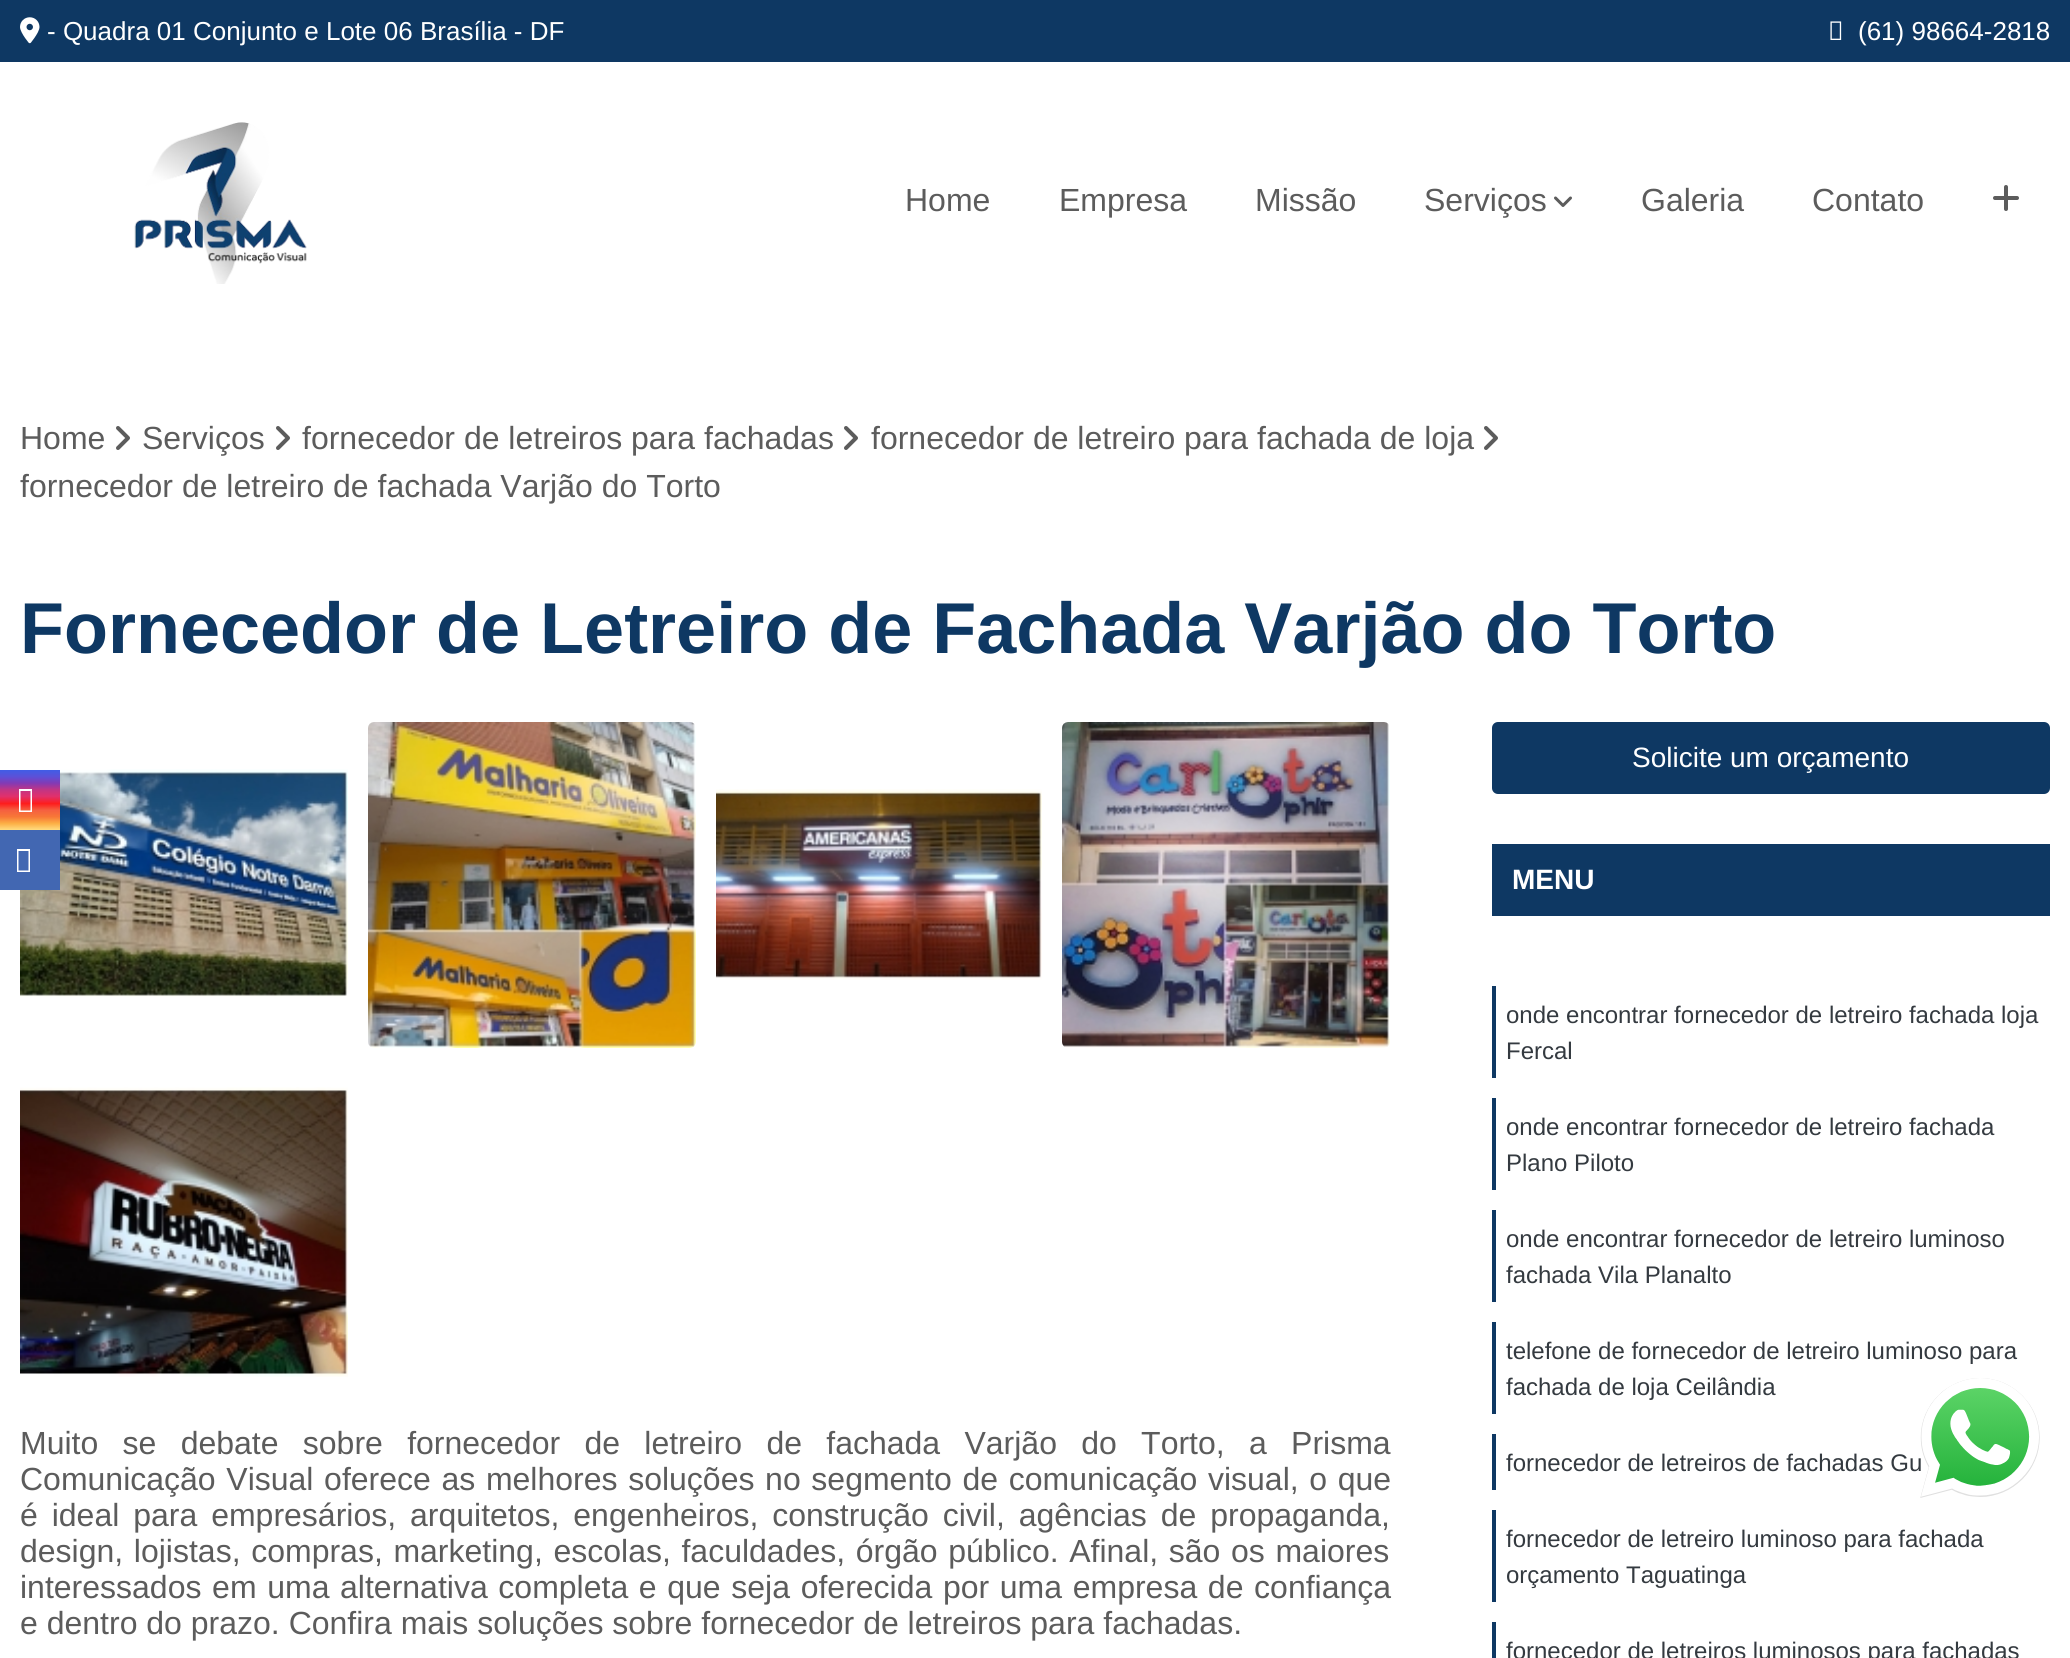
#include <cairo/cairo.h>
#include <math.h>
#include <stddef.h>

typedef struct { double x, y; const char *s; } line_t;
typedef struct { double x, y, w, h; unsigned color; } box_t;
static cairo_t *cr;

static void rgb(unsigned color)
{
	cairo_set_source_rgb(cr, (color >> 16) / 255.0, (color >> 8 & 255) / 255.0, (color & 255) / 255.0);
}

static void tracked(double x, double y, const char *s, double letter, double word)
{
	cairo_move_to(cr, x, y);
	while (*s) {
		char ch[5] = {0};
		int n = 0;
		do ch[n++] = *s++; while ((*s & 0xC0) == 0x80);
		cairo_show_text(cr, ch);
		cairo_rel_move_to(cr, letter + word * (*ch == ' '), 0);
	}
}

static void rrect(double x, double y, double w, double h, double r)
{
	cairo_new_sub_path(cr);
	cairo_arc(cr, x + w - r, y + h - r, r, 0, M_PI / 2);
	cairo_arc(cr, x + r, y + h - r, r, M_PI / 2, M_PI);
	cairo_arc(cr, x + r, y + r, r, M_PI, 1.5 * M_PI);
	cairo_arc(cr, x + w - r, y + r, r, 1.5 * M_PI, 2 * M_PI);
	cairo_close_path(cr);
}

static void image(const char *path, double x, double y, double w, double h)
{
	cairo_surface_t *image = cairo_image_surface_create_from_png(path);
	cairo_save(cr);
	cairo_set_source_surface(cr, image, x, y);
	cairo_rectangle(cr, x, y, w, h);
	cairo_fill(cr);
	cairo_restore(cr);
	cairo_surface_destroy(image);
}

int main(void) {
	cairo_surface_t *surface = cairo_image_surface_create(CAIRO_FORMAT_RGB24, 2070, 1658);
	cr = cairo_create(surface);
	cairo_font_options_t *options = cairo_font_options_create();
	cairo_font_options_set_hint_metrics(options, CAIRO_HINT_METRICS_OFF);
	cairo_font_options_set_hint_style(options, CAIRO_HINT_STYLE_NONE);
	cairo_set_font_options(cr, options);
	cairo_set_miter_limit(cr, 4);
	cairo_pattern_t *gradient;
	rgb(0xffffff);
	cairo_paint(cr);
	rgb(0x0e3863);
	cairo_rectangle(cr, 0, 0, 2070, 62);
	cairo_fill(cr);
	image("img/1.png", 20, 17, 20, 27);
	image("img/2.png", 1830, 21, 12, 19);
	image("img/3.png", 134, 122, 173, 162);
	image("img/4.png", 1554, 196, 18, 11);
	image("img/5.png", 1993, 185, 26, 26);
	image("img/6.png", 116, 426, 14, 24);
	image("img/6.png", 276, 426, 14, 24);
	image("img/6.png", 844, 426, 14, 24);
	image("img/6.png", 1484, 426, 14, 24);
	image("img/7.png", 20, 769, 328, 228);
	image("img/8.png", 368, 722, 328, 326);
	image("img/9.png", 716, 789, 326, 191);
	image("img/10.png", 1062, 722, 328, 326);
	image("img/11.png", 20, 1087, 328, 290);
	rrect(1492, 722, 558, 72, 6);
	cairo_fill(cr);
	{
		static const box_t items[] = {
			{1492, 844, 558, 72, 0x0e3863},
			{1492, 986, 4, 92, 0x0e3863},
			{1492, 1098, 4, 92, 0x0e3863},
			{1492, 1210, 4, 92, 0x0e3863},
			{1492, 1322, 4, 92, 0x0e3863},
			{1492, 1434, 4, 56, 0x0e3863},
			{1492, 1510, 4, 92, 0x0e3863},
			{1492, 1622, 4, 36, 0x0e3863},
		};
		for (size_t i = 0; i < sizeof items / sizeof *items; i++) {
			rgb(items[i].color);
			cairo_rectangle(cr, items[i].x, items[i].y, items[i].w, items[i].h);
			cairo_fill(cr);
		}
	}
	gradient = cairo_pattern_create_linear(30, 770, 30, 830);
	cairo_pattern_add_color_stop_rgba(gradient, 0, 0.251, 0.365, 0.902, 1);
	cairo_pattern_add_color_stop_rgba(gradient, 0.11, 0.357, 0.318, 0.847, 1);
	cairo_pattern_add_color_stop_rgba(gradient, 0.22, 0.514, 0.227, 0.706, 1);
	cairo_pattern_add_color_stop_rgba(gradient, 0.33, 0.757, 0.208, 0.518, 1);
	cairo_pattern_add_color_stop_rgba(gradient, 0.44, 0.882, 0.188, 0.424, 1);
	cairo_pattern_add_color_stop_rgba(gradient, 0.56, 0.992, 0.114, 0.114, 1);
	cairo_pattern_add_color_stop_rgba(gradient, 0.67, 0.961, 0.376, 0.251, 1);
	cairo_pattern_add_color_stop_rgba(gradient, 0.78, 0.969, 0.467, 0.216, 1);
	cairo_pattern_add_color_stop_rgba(gradient, 0.89, 0.988, 0.686, 0.271, 1);
	cairo_pattern_add_color_stop_rgba(gradient, 1, 1, 0.863, 0.502, 1);
	cairo_set_source(cr, gradient);
	cairo_pattern_destroy(gradient);
	cairo_rectangle(cr, 0, 770, 60, 60);
	cairo_fill(cr);
	rgb(0xffffff);
	cairo_new_path(cr);
	cairo_move_to(cr, 19, 812);
	cairo_line_to(cr, 19, 789);
	cairo_line_to(cr, 32, 789);
	cairo_line_to(cr, 32, 812);
	cairo_close_path(cr);
	cairo_move_to(cr, 20.5, 810.5);
	cairo_line_to(cr, 30.5, 810.5);
	cairo_line_to(cr, 30.5, 791);
	cairo_line_to(cr, 20.5, 791);
	cairo_close_path(cr);
	cairo_fill(cr);
	rgb(0x4267b2);
	cairo_rectangle(cr, 0, 830, 60, 60);
	cairo_fill(cr);
	rgb(0xffffff);
	cairo_new_path(cr);
	cairo_move_to(cr, 17, 872);
	cairo_line_to(cr, 17, 849);
	cairo_line_to(cr, 30, 849);
	cairo_line_to(cr, 30, 872);
	cairo_close_path(cr);
	cairo_move_to(cr, 18.5, 870.5);
	cairo_line_to(cr, 28.5, 870.5);
	cairo_line_to(cr, 28.5, 851);
	cairo_line_to(cr, 18.5, 851);
	cairo_close_path(cr);
	cairo_fill(cr);
	cairo_select_font_face(cr, "Liberation Sans", CAIRO_FONT_SLANT_NORMAL, CAIRO_FONT_WEIGHT_NORMAL);
	cairo_set_font_size(cr, 26);
	cairo_move_to(cr, 47, 40);
	cairo_show_text(cr, "- Quadra 01 Conjunto e Lote 06 Brasília - DF");
	cairo_move_to(cr, 1858, 40);
	cairo_show_text(cr, "(61) 98664-2818");
	cairo_set_font_size(cr, 32);
	rgb(0x5c5c5c);
	{
		static const line_t items[] = {
			{905, 211, "Home"},
			{1059, 211, "Empresa"},
			{1255, 211, "Missão"},
			{1424, 211, "Serviços"},
			{1641, 211, "Galeria"},
			{1812, 211, "Contato"},
			{20, 449, "Home"},
			{142, 449, "Serviços"},
			{302, 449, "fornecedor de letreiros para fachadas"},
			{871, 449, "fornecedor de letreiro para fachada de loja"},
			{20, 497, "fornecedor de letreiro de fachada Varjão do Torto"},
		};
		for (size_t i = 0; i < sizeof items / sizeof *items; i++) {
			cairo_move_to(cr, items[i].x, items[i].y);
			cairo_show_text(cr, items[i].s);
		}
	}
	cairo_select_font_face(cr, "Liberation Sans", CAIRO_FONT_SLANT_NORMAL, CAIRO_FONT_WEIGHT_BOLD);
	cairo_set_font_size(cr, 72);
	rgb(0x0e3863);
	cairo_move_to(cr, 20, 653);
	cairo_show_text(cr, "Fornecedor de Letreiro de Fachada Varjão do Torto");
	cairo_select_font_face(cr, "Liberation Sans", CAIRO_FONT_SLANT_NORMAL, CAIRO_FONT_WEIGHT_NORMAL);
	cairo_set_font_size(cr, 32);
	rgb(0x5c5c5c);
	tracked(20, 1454, "Muito se debate sobre fornecedor de letreiro de fachada Varjão do Torto, a Prisma", 0, 15.4);
	tracked(20, 1490, "Comunicação Visual oferece as melhores soluções no segmento de comunicação visual, o que", 0, 1.75);
	tracked(20, 1526, "é ideal para empresários, arquitetos, engenheiros, construção civil, agências de propaganda,", 0, 5);
	tracked(20, 1562, "design, lojistas, compras, marketing, escolas, faculdades, órgão público. Afinal, são os maiores", 0, 1.75);
	tracked(20, 1598, "interessados em uma alternativa completa e que seja oferecida por uma empresa de confiança", 0, 1.75);
	cairo_move_to(cr, 20, 1634);
	cairo_show_text(cr, "e dentro do prazo. Confira mais soluções sobre fornecedor de letreiros para fachadas.");
	cairo_set_font_size(cr, 28);
	rgb(0xffffff);
	cairo_move_to(cr, 1632, 767);
	cairo_show_text(cr, "Solicite um orçamento");
	cairo_select_font_face(cr, "Liberation Sans", CAIRO_FONT_SLANT_NORMAL, CAIRO_FONT_WEIGHT_BOLD);
	cairo_move_to(cr, 1512, 889);
	cairo_show_text(cr, "MENU");
	cairo_select_font_face(cr, "Liberation Sans", CAIRO_FONT_SLANT_NORMAL, CAIRO_FONT_WEIGHT_NORMAL);
	cairo_set_font_size(cr, 24);
	rgb(0x343a40);
	{
		static const line_t items[] = {
			{1506, 1023, "onde encontrar fornecedor de letreiro fachada loja"},
			{1506, 1059, "Fercal"},
			{1506, 1135, "onde encontrar fornecedor de letreiro fachada"},
			{1506, 1171, "Plano Piloto"},
			{1506, 1247, "onde encontrar fornecedor de letreiro luminoso"},
			{1506, 1283, "fachada Vila Planalto"},
			{1506, 1359, "telefone de fornecedor de letreiro luminoso para"},
			{1506, 1395, "fachada de loja Ceilândia"},
			{1506, 1471, "fornecedor de letreiros de fachadas Gu"},
			{1506, 1547, "fornecedor de letreiro luminoso para fachada"},
			{1506, 1583, "orçamento Taguatinga"},
			{1506, 1659, "fornecedor de letreiros luminosos para fachadas"},
		};
		for (size_t i = 0; i < sizeof items / sizeof *items; i++) {
			cairo_move_to(cr, items[i].x, items[i].y);
			cairo_show_text(cr, items[i].s);
		}
	}
	image("img/12.png", 1920, 1378, 120, 120);
	cairo_surface_write_to_png(surface, "page.png");
	cairo_font_options_destroy(options);
	cairo_destroy(cr);
	cairo_surface_destroy(surface);
	return 0;
}
